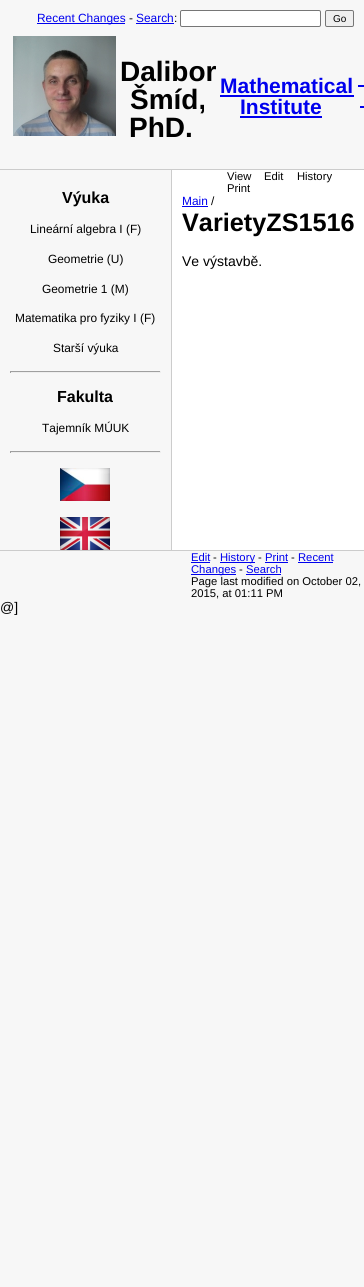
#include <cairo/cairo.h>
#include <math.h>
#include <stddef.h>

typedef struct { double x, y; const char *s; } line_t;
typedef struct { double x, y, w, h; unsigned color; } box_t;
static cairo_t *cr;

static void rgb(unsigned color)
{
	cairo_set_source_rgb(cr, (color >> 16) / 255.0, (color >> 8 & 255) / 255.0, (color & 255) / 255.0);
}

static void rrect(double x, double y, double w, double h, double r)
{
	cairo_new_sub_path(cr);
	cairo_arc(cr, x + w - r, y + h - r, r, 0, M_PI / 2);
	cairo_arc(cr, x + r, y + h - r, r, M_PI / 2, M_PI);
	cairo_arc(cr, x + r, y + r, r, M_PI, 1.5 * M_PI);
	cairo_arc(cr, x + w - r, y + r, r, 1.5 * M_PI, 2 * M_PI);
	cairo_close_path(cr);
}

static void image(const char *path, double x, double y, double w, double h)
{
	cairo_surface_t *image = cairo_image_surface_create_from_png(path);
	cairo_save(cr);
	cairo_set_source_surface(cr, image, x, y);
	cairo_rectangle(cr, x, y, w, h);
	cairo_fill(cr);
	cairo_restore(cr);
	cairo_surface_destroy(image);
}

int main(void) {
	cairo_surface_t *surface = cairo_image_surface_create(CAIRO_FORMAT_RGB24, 364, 1287);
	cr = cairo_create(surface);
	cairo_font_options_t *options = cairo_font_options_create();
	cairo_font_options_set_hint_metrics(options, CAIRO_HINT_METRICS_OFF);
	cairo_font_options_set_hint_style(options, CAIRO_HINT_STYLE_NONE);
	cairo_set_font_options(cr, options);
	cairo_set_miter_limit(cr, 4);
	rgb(0xf7f7f7);
	cairo_paint(cr);
	rgb(0x0000ee);
	cairo_rectangle(cr, 37, 23, 88, 1);
	cairo_fill(cr);
	cairo_rectangle(cr, 136, 23, 38, 1);
	cairo_fill(cr);
	rgb(0xffffff);
	rrect(180.5, 10.5, 140, 16, 1.5);
	cairo_fill_preserve(cr);
	rgb(0x767676);
	cairo_set_line_width(cr, 1);
	cairo_stroke(cr);
	rgb(0xefefef);
	rrect(325.5, 10.5, 28, 16, 1.5);
	cairo_fill_preserve(cr);
	rgb(0x767676);
	cairo_stroke(cr);
	rgb(0xcccccc);
	cairo_rectangle(cr, 0, 169, 364, 1);
	cairo_fill(cr);
	image("img/1.png", 13, 36, 103, 100);
	{
		static const box_t items[] = {
			{220, 95, 134, 2, 0x0000ee},
			{240, 116, 82, 2, 0x0000ee},
			{358, 85, 6, 2, 0x0000ee},
			{360, 106, 4, 2, 0x0000ee},
			{171, 170, 1, 380, 0xcccccc},
			{10, 371, 151, 1, 0x9f9f9f},
			{160, 371, 1, 2, 0xeeeeee},
			{10, 372, 151, 1, 0xeeeeee},
			{10, 371, 1, 2, 0x9f9f9f},
			{10, 451, 151, 1, 0x9f9f9f},
			{160, 451, 1, 2, 0xeeeeee},
			{10, 452, 151, 1, 0xeeeeee},
			{10, 451, 1, 2, 0x9f9f9f},
		};
		for (size_t i = 0; i < sizeof items / sizeof *items; i++) {
			rgb(items[i].color);
			cairo_rectangle(cr, items[i].x, items[i].y, items[i].w, items[i].h);
			cairo_fill(cr);
		}
	}
	image("img/2.png", 60, 468, 50, 33);
	image("img/3.png", 60, 517, 50, 33);
	{
		static const box_t items[] = {
			{172, 170, 192, 380, 0xffffff},
			{182, 206, 26, 1, 0x0000ee},
			{0, 550, 364, 1, 0xcccccc},
			{191, 562, 19, 1, 0x0000ee},
			{220, 562, 35, 1, 0x0000ee},
			{265, 562, 23, 1, 0x0000ee},
			{298, 562, 35, 1, 0x0000ee},
			{191, 574, 45, 1, 0x0000ee},
			{246, 574, 35, 1, 0x0000ee},
		};
		for (size_t i = 0; i < sizeof items / sizeof *items; i++) {
			rgb(items[i].color);
			cairo_rectangle(cr, items[i].x, items[i].y, items[i].w, items[i].h);
			cairo_fill(cr);
		}
	}
	cairo_select_font_face(cr, "Liberation Sans", CAIRO_FONT_SLANT_NORMAL, CAIRO_FONT_WEIGHT_NORMAL);
	cairo_set_font_size(cr, 11.9);
	cairo_move_to(cr, 37, 22);
	cairo_show_text(cr, "Recent Changes");
	rgb(0x000000);
	cairo_move_to(cr, 129, 22);
	cairo_show_text(cr, "-");
	rgb(0x0000ee);
	cairo_move_to(cr, 136, 22);
	cairo_show_text(cr, "Search");
	rgb(0x000000);
	cairo_move_to(cr, 174, 22);
	cairo_show_text(cr, ":");
	cairo_set_font_size(cr, 10);
	cairo_move_to(cr, 333, 22);
	cairo_show_text(cr, "Go");
	cairo_select_font_face(cr, "Liberation Sans", CAIRO_FONT_SLANT_NORMAL, CAIRO_FONT_WEIGHT_BOLD);
	cairo_set_font_size(cr, 28);
	{
		static const line_t items[] = {
			{120, 81, "Dalibor"},
			{130, 109, "Šmíd,"},
			{129, 137, "PhD."},
		};
		for (size_t i = 0; i < sizeof items / sizeof *items; i++) {
			cairo_move_to(cr, items[i].x, items[i].y);
			cairo_show_text(cr, items[i].s);
		}
	}
	cairo_set_font_size(cr, 21);
	rgb(0x0000ee);
	cairo_move_to(cr, 220, 93);
	cairo_show_text(cr, "Mathematical");
	cairo_move_to(cr, 240, 114);
	cairo_show_text(cr, "Institute");
	cairo_set_font_size(cr, 16);
	rgb(0x000000);
	cairo_move_to(cr, 62, 203);
	cairo_show_text(cr, "Výuka");
	cairo_select_font_face(cr, "Liberation Sans", CAIRO_FONT_SLANT_NORMAL, CAIRO_FONT_WEIGHT_NORMAL);
	cairo_set_font_size(cr, 11.9);
	{
		static const line_t items[] = {
			{30, 233, "Lineární algebra I (F)"},
			{48, 263, "Geometrie (U)"},
			{42, 293, "Geometrie 1 (M)"},
			{15, 322, "Matematika pro fyziky I (F)"},
			{53, 352, "Starší výuka"},
		};
		for (size_t i = 0; i < sizeof items / sizeof *items; i++) {
			cairo_move_to(cr, items[i].x, items[i].y);
			cairo_show_text(cr, items[i].s);
		}
	}
	cairo_select_font_face(cr, "Liberation Sans", CAIRO_FONT_SLANT_NORMAL, CAIRO_FONT_WEIGHT_BOLD);
	cairo_set_font_size(cr, 16);
	cairo_move_to(cr, 57, 402);
	cairo_show_text(cr, "Fakulta");
	cairo_select_font_face(cr, "Liberation Sans", CAIRO_FONT_SLANT_NORMAL, CAIRO_FONT_WEIGHT_NORMAL);
	cairo_set_font_size(cr, 11.9);
	cairo_move_to(cr, 42, 432);
	cairo_show_text(cr, "Tajemník MÚUK");
	cairo_set_font_size(cr, 11.25);
	{
		static const line_t items[] = {
			{227, 180, "View"},
			{264, 180, "Edit"},
			{297, 180, "History"},
			{227, 192, "Print"},
		};
		for (size_t i = 0; i < sizeof items / sizeof *items; i++) {
			cairo_move_to(cr, items[i].x, items[i].y);
			cairo_show_text(cr, items[i].s);
		}
	}
	cairo_set_font_size(cr, 11.9);
	rgb(0x0000ee);
	cairo_move_to(cr, 182, 205);
	cairo_show_text(cr, "Main");
	rgb(0x000000);
	cairo_move_to(cr, 211, 205);
	cairo_show_text(cr, "/");
	cairo_select_font_face(cr, "Liberation Sans", CAIRO_FONT_SLANT_NORMAL, CAIRO_FONT_WEIGHT_BOLD);
	cairo_set_font_size(cr, 25.25);
	cairo_move_to(cr, 182, 231);
	cairo_show_text(cr, "VarietyZS1516");
	cairo_select_font_face(cr, "Liberation Sans", CAIRO_FONT_SLANT_NORMAL, CAIRO_FONT_WEIGHT_NORMAL);
	cairo_set_font_size(cr, 14);
	cairo_move_to(cr, 182, 266);
	cairo_show_text(cr, "Ve výstavbě.");
	cairo_set_font_size(cr, 11.25);
	rgb(0x0000ee);
	cairo_move_to(cr, 191, 561);
	cairo_show_text(cr, "Edit");
	rgb(0x000000);
	cairo_move_to(cr, 213, 561);
	cairo_show_text(cr, "-");
	rgb(0x0000ee);
	cairo_move_to(cr, 220, 561);
	cairo_show_text(cr, "History");
	rgb(0x000000);
	cairo_move_to(cr, 258, 561);
	cairo_show_text(cr, "-");
	rgb(0x0000ee);
	cairo_move_to(cr, 265, 561);
	cairo_show_text(cr, "Print");
	rgb(0x000000);
	cairo_move_to(cr, 291, 561);
	cairo_show_text(cr, "-");
	rgb(0x0000ee);
	cairo_move_to(cr, 298, 561);
	cairo_show_text(cr, "Recent");
	cairo_move_to(cr, 191, 573);
	cairo_show_text(cr, "Changes");
	rgb(0x000000);
	cairo_move_to(cr, 239, 573);
	cairo_show_text(cr, "-");
	rgb(0x0000ee);
	cairo_move_to(cr, 246, 573);
	cairo_show_text(cr, "Search");
	rgb(0x000000);
	cairo_move_to(cr, 191, 585);
	cairo_show_text(cr, "Page last modified on October 02,");
	cairo_move_to(cr, 191, 597);
	cairo_show_text(cr, "2015, at 01:11 PM");
	cairo_set_font_size(cr, 14);
	cairo_move_to(cr, 0, 612);
	cairo_show_text(cr, "@]");
	cairo_surface_write_to_png(surface, "page.png");
	cairo_font_options_destroy(options);
	cairo_destroy(cr);
	cairo_surface_destroy(surface);
	return 0;
}
